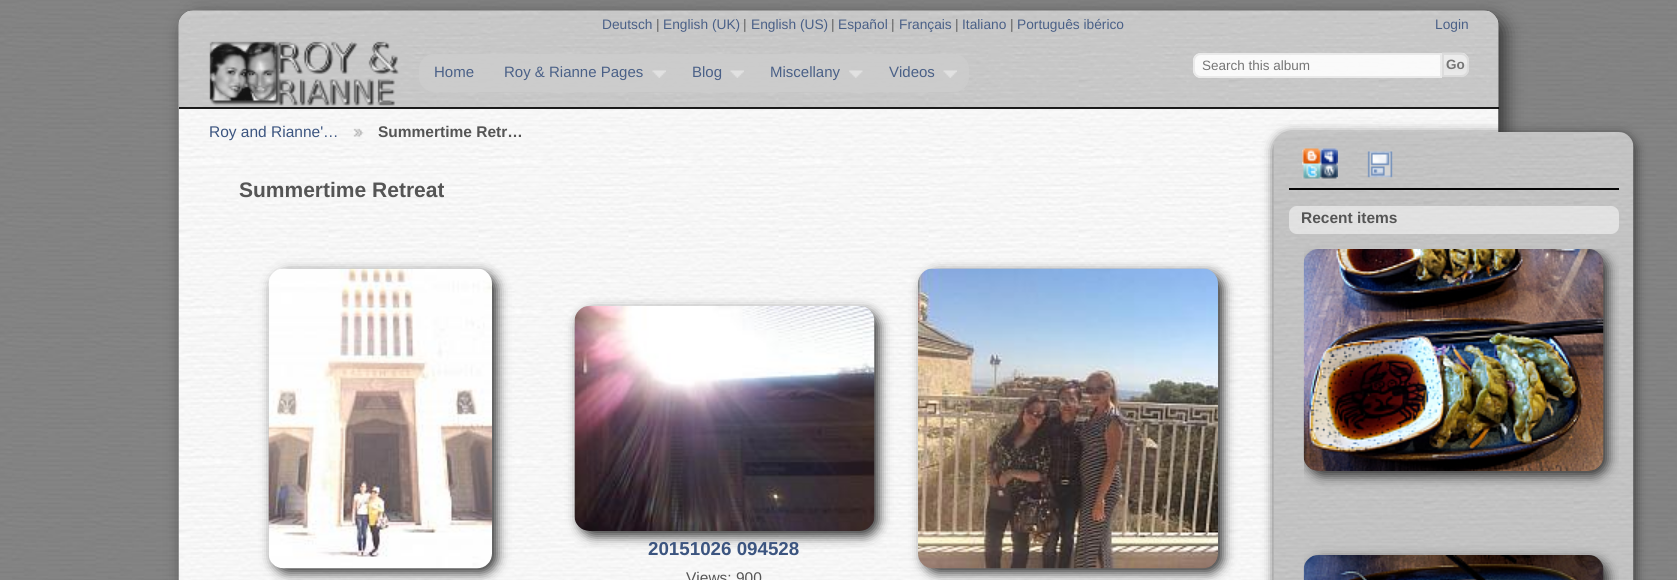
#include <cairo/cairo.h>
#include <math.h>
#include <stddef.h>

typedef struct { double x, y; const char *s; } line_t;
static cairo_t *cr;

static void rgb(unsigned color)
{
	cairo_set_source_rgb(cr, (color >> 16) / 255.0, (color >> 8 & 255) / 255.0, (color & 255) / 255.0);
}

static void rrect(double x, double y, double w, double h, double r)
{
	cairo_new_sub_path(cr);
	cairo_arc(cr, x + w - r, y + h - r, r, 0, M_PI / 2);
	cairo_arc(cr, x + r, y + h - r, r, M_PI / 2, M_PI);
	cairo_arc(cr, x + r, y + r, r, M_PI, 1.5 * M_PI);
	cairo_arc(cr, x + w - r, y + r, r, 1.5 * M_PI, 2 * M_PI);
	cairo_close_path(cr);
}

static void soft_shadow(double x, double y, double w, double h, double r, double blur, double alpha)
{
	cairo_push_group_with_content(cr, CAIRO_CONTENT_ALPHA);
	cairo_set_operator(cr, CAIRO_OPERATOR_SOURCE);
	for (int i = 15; i >= -15 && fmin(w, h) + blur * i / 3 > 0; i -= 2) {
		double e = blur * i / 6;
		cairo_set_source_rgba(cr, 0, 0, 0, alpha * erfc((i - 1) / 8.5) / 2);
		rrect(x - e, y - e, w + 2 * e, h + 2 * e, fmax(0, fmin(r + e + blur * .6, fmin(w, h) / 2 + e)));
		cairo_fill(cr);
	}
	cairo_pattern_t *soft = cairo_pop_group(cr);
	cairo_mask(cr, soft);
	cairo_pattern_destroy(soft);
}

static void image(const char *path, double x, double y, double w, double h)
{
	cairo_surface_t *image = cairo_image_surface_create_from_png(path);
	cairo_save(cr);
	cairo_set_source_surface(cr, image, x, y);
	cairo_rectangle(cr, x, y, w, h);
	cairo_fill(cr);
	cairo_restore(cr);
	cairo_surface_destroy(image);
}

int main(void) {
	cairo_surface_t *surface = cairo_image_surface_create(CAIRO_FORMAT_RGB24, 1677, 580);
	cr = cairo_create(surface);
	cairo_font_options_t *options = cairo_font_options_create();
	cairo_font_options_set_hint_metrics(options, CAIRO_HINT_METRICS_OFF);
	cairo_font_options_set_hint_style(options, CAIRO_HINT_STYLE_NONE);
	cairo_set_font_options(cr, options);
	cairo_set_miter_limit(cr, 4);
	rgb(0xffffff);
	cairo_paint(cr);
	image("img/1.png", 0, 0, 1677, 580);
	rgb(0x333333);
	soft_shadow(185, 17, 1320, 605, 15, 9, 1);
	image("img/2.png", 178, 10, 1321, 570);
	image("img/3.png", 178, 10, 1321, 98);
	cairo_set_source_rgba(cr, 0.02, 0.02, 0.02, 0.9);
	cairo_rectangle(cr, 179, 107, 1320, 2);
	cairo_fill(cr);
	image("img/4.png", 209, 41, 190, 65);
	cairo_set_source_rgba(cr, 0.8, 0.8, 0.8, 0.9);
	rrect(419, 54, 550, 38, 15);
	cairo_fill(cr);
	image("img/5.png", 652, 70, 14, 8);
	image("img/6.png", 730, 70, 14, 8);
	image("img/7.png", 849, 70, 14, 8);
	image("img/8.png", 943, 70, 14, 8);
	cairo_set_source_rgba(cr, 1, 1, 1, 0.9);
	cairo_new_path(cr);
	cairo_move_to(cr, 1201, 53);
	cairo_line_to(cr, 1442, 53);
	cairo_line_to(cr, 1442, 78);
	cairo_line_to(cr, 1201, 78);
	cairo_curve_to(cr, 1196.5, 78, 1193, 74.5, 1193, 70);
	cairo_line_to(cr, 1193, 61);
	cairo_curve_to(cr, 1193, 56.5, 1196.5, 53, 1201, 53);
	cairo_close_path(cr);
	cairo_fill(cr);
	cairo_new_path(cr);
	cairo_move_to(cr, 1201, 54);
	cairo_line_to(cr, 1441, 54);
	cairo_line_to(cr, 1441, 77);
	cairo_line_to(cr, 1201, 77);
	cairo_curve_to(cr, 1197, 77, 1194, 74, 1194, 70);
	cairo_line_to(cr, 1194, 61);
	cairo_curve_to(cr, 1194, 57, 1197, 54, 1201, 54);
	cairo_close_path(cr);
	cairo_set_source_rgba(cr, 0.91, 0.91, 0.91, 0.9);
	cairo_stroke(cr);
	cairo_set_source_rgba(cr, 0.902, 0.902, 0.902, 0.9);
	cairo_new_path(cr);
	cairo_move_to(cr, 1442, 53);
	cairo_line_to(cr, 1461, 53);
	cairo_curve_to(cr, 1465.5, 53, 1469, 56.5, 1469, 61);
	cairo_line_to(cr, 1469, 69);
	cairo_curve_to(cr, 1469, 73.5, 1465.5, 77, 1461, 77);
	cairo_line_to(cr, 1442, 77);
	cairo_close_path(cr);
	cairo_fill(cr);
	image("img/9.png", 1442, 52, 26, 24);
	cairo_new_path(cr);
	cairo_move_to(cr, 1443, 54);
	cairo_line_to(cr, 1461, 54);
	cairo_curve_to(cr, 1465, 54, 1468, 57, 1468, 61);
	cairo_line_to(cr, 1468, 69);
	cairo_curve_to(cr, 1468, 73, 1465, 76, 1461, 76);
	cairo_line_to(cr, 1443, 76);
	cairo_close_path(cr);
	cairo_set_source_rgba(cr, 0.859, 0.859, 0.859, 0.9);
	cairo_stroke(cr);
	image("img/10.png", 353, 128, 11, 9);
	rgb(0x333333);
	soft_shadow(273, 273, 224, 300, 15, 6, 1);
	image("img/11.png", 268, 268, 224, 301);
	soft_shadow(579, 311, 300, 225, 15, 6, 1);
	image("img/12.png", 574, 306, 301, 225);
	soft_shadow(923, 273, 300, 300, 15, 6, 1);
	image("img/13.png", 918, 268, 300, 301);
	soft_shadow(1275, 135, 360, 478, 15, 6, 1);
	image("img/14.png", 1273, 132, 361, 448);
	rgb(0x050505);
	cairo_rectangle(cr, 1289, 188, 330, 2);
	cairo_fill(cr);
	image("img/15.png", 1302, 148, 36, 31);
	image("img/16.png", 1367, 151, 26, 27);
	cairo_set_source_rgba(cr, 1, 1, 1, 0.5);
	rrect(1289, 206, 330, 28, 8);
	cairo_fill(cr);
	cairo_save(cr);
	cairo_rectangle(cr, 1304, 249, 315, 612);
	cairo_clip(cr);
	rgb(0x333333);
	soft_shadow(1308, 254, 300, 222, 15, 6, 1);
	cairo_restore(cr);
	image("img/17.png", 1303, 249, 301, 222);
	cairo_save(cr);
	cairo_rectangle(cr, 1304, 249, 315, 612);
	cairo_clip(cr);
	rgb(0x333333);
	soft_shadow(1308, 560, 300, 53, 15, 6, 1);
	cairo_restore(cr);
	image("img/18.png", 1303, 555, 301, 25);
	cairo_select_font_face(cr, "Liberation Sans", CAIRO_FONT_SLANT_NORMAL, CAIRO_FONT_WEIGHT_NORMAL);
	cairo_set_font_size(cr, 13.75);
	rgb(0x4a6087);
	cairo_move_to(cr, 602, 29);
	cairo_show_text(cr, "Deutsch");
	rgb(0x606060);
	cairo_move_to(cr, 656, 29);
	cairo_show_text(cr, "|");
	rgb(0x4a6087);
	cairo_move_to(cr, 663, 29);
	cairo_show_text(cr, "English (UK)");
	rgb(0x606060);
	cairo_move_to(cr, 743, 29);
	cairo_show_text(cr, "|");
	rgb(0x4a6087);
	cairo_move_to(cr, 751, 29);
	cairo_show_text(cr, "English (US)");
	rgb(0x606060);
	cairo_move_to(cr, 831, 29);
	cairo_show_text(cr, "|");
	rgb(0x4a6087);
	cairo_move_to(cr, 838, 29);
	cairo_show_text(cr, "Español");
	rgb(0x606060);
	cairo_move_to(cr, 891, 29);
	cairo_show_text(cr, "|");
	rgb(0x4a6087);
	cairo_move_to(cr, 899, 29);
	cairo_show_text(cr, "Français");
	rgb(0x606060);
	cairo_move_to(cr, 955, 29);
	cairo_show_text(cr, "|");
	rgb(0x4a6087);
	cairo_move_to(cr, 962, 29);
	cairo_show_text(cr, "Italiano");
	rgb(0x606060);
	cairo_move_to(cr, 1010, 29);
	cairo_show_text(cr, "|");
	rgb(0x4a6087);
	cairo_move_to(cr, 1017, 29);
	cairo_show_text(cr, "Português ibérico");
	cairo_move_to(cr, 1435, 29);
	cairo_show_text(cr, "Login");
	cairo_set_font_size(cr, 15);
	{
		static const line_t items[] = {
			{434, 77, "Home"},
			{504, 77, "Roy & Rianne Pages"},
			{692, 77, "Blog"},
			{770, 77, "Miscellany"},
			{889, 77, "Videos"},
		};
		for (size_t i = 0; i < sizeof items / sizeof *items; i++) {
			cairo_move_to(cr, items[i].x, items[i].y);
			cairo_show_text(cr, items[i].s);
		}
	}
	cairo_set_font_size(cr, 13.5);
	rgb(0x757575);
	cairo_move_to(cr, 1202, 70);
	cairo_show_text(cr, "Search this album");
	cairo_select_font_face(cr, "Liberation Sans", CAIRO_FONT_SLANT_NORMAL, CAIRO_FONT_WEIGHT_BOLD);
	cairo_move_to(cr, 1446, 69);
	cairo_show_text(cr, "Go");
	cairo_select_font_face(cr, "Liberation Sans", CAIRO_FONT_SLANT_NORMAL, CAIRO_FONT_WEIGHT_NORMAL);
	cairo_set_font_size(cr, 15.5);
	rgb(0x3c5580);
	cairo_move_to(cr, 209, 137);
	cairo_show_text(cr, "Roy and Rianne'…");
	cairo_select_font_face(cr, "Liberation Sans", CAIRO_FONT_SLANT_NORMAL, CAIRO_FONT_WEIGHT_BOLD);
	rgb(0x555555);
	cairo_move_to(cr, 378, 137);
	cairo_show_text(cr, "Summertime Retr…");
	cairo_set_font_size(cr, 21);
	cairo_move_to(cr, 239, 197);
	cairo_show_text(cr, "Summertime Retreat");
	cairo_set_font_size(cr, 18.75);
	rgb(0x3c5580);
	cairo_move_to(cr, 648, 555);
	cairo_show_text(cr, "20151026 094528");
	cairo_select_font_face(cr, "Liberation Sans", CAIRO_FONT_SLANT_NORMAL, CAIRO_FONT_WEIGHT_NORMAL);
	cairo_set_font_size(cr, 15.5);
	rgb(0x555555);
	cairo_move_to(cr, 686, 583);
	cairo_show_text(cr, "Views: 900");
	cairo_select_font_face(cr, "Liberation Sans", CAIRO_FONT_SLANT_NORMAL, CAIRO_FONT_WEIGHT_BOLD);
	cairo_move_to(cr, 1301, 223);
	cairo_show_text(cr, "Recent items");
	cairo_surface_write_to_png(surface, "page.png");
	cairo_font_options_destroy(options);
	cairo_destroy(cr);
	cairo_surface_destroy(surface);
	return 0;
}
